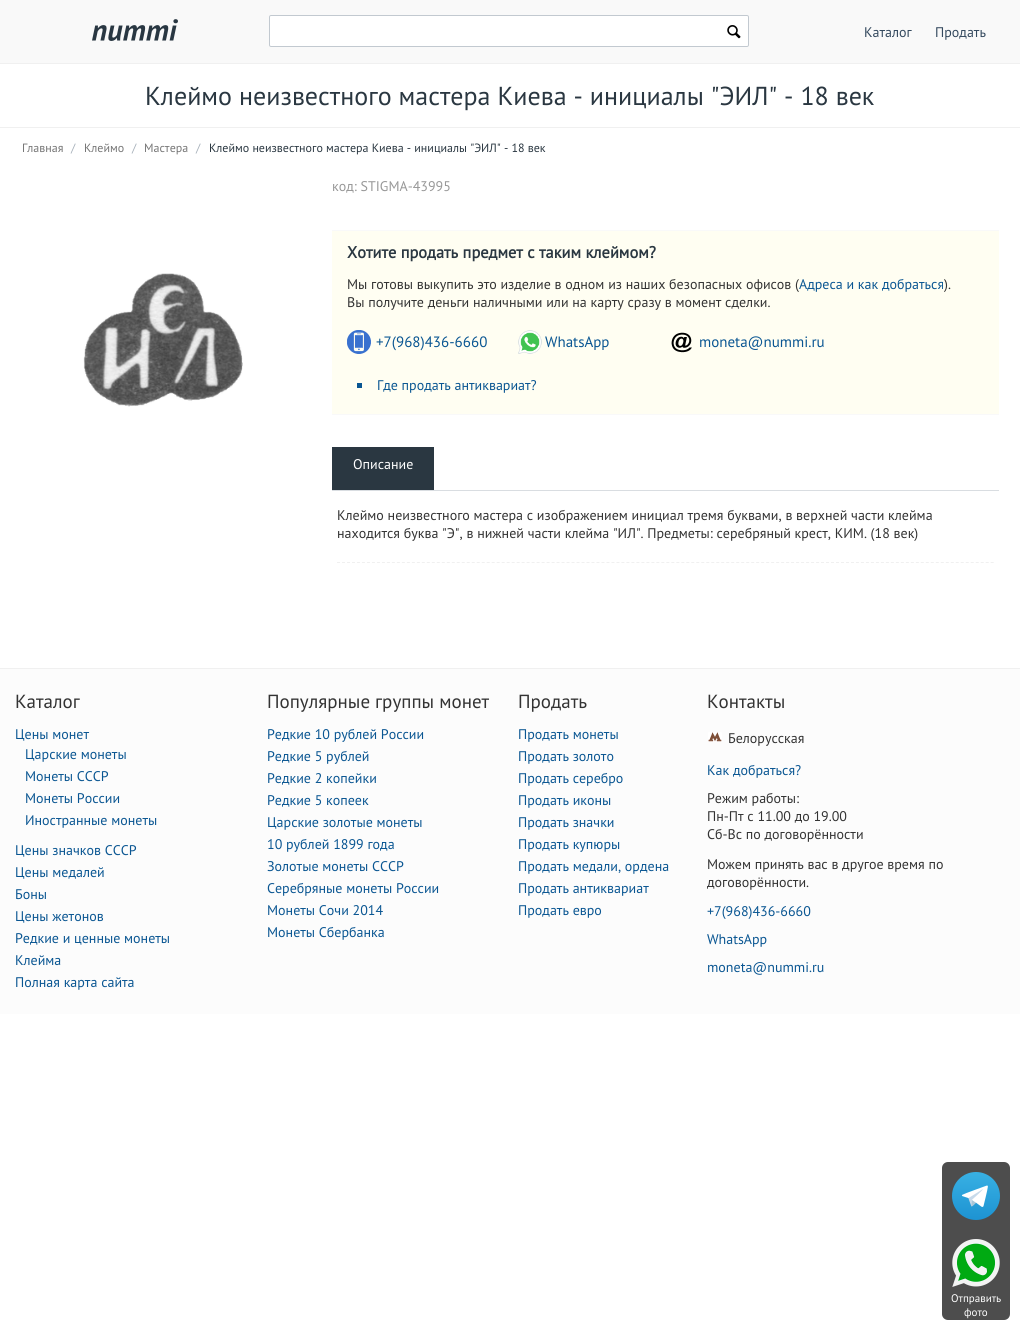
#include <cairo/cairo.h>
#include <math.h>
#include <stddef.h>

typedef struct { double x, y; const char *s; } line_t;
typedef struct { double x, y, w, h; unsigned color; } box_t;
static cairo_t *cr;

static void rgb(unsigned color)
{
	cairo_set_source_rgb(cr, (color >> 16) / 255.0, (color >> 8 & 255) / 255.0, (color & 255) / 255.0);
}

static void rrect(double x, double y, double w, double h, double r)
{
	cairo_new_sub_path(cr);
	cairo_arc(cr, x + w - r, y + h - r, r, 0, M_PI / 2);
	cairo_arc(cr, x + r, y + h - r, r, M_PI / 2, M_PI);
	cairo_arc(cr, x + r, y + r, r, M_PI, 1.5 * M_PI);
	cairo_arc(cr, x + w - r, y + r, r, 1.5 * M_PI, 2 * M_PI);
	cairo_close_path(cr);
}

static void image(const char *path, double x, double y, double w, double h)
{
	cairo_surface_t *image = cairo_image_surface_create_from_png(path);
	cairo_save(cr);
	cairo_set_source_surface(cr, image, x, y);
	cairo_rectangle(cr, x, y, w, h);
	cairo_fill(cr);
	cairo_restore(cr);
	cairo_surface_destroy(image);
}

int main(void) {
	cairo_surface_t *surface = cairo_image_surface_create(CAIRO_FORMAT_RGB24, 1020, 1330);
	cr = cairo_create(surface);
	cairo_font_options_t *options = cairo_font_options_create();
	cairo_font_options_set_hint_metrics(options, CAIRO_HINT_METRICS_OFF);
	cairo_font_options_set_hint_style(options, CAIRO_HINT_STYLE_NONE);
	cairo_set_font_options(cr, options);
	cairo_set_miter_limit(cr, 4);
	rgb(0xffffff);
	cairo_paint(cr);
	rgb(0xf9f9f9);
	cairo_rectangle(cr, 0, 0, 1020, 63);
	cairo_fill(cr);
	rgb(0xf0f0f0);
	cairo_rectangle(cr, 0, 63, 1020, 1);
	cairo_fill(cr);
	image("img/1.png", 92, 19, 86, 22);
	rgb(0xffffff);
	rrect(269.5, 15.5, 479, 31, 1.5);
	cairo_fill_preserve(cr);
	rgb(0xc2c9d0);
	cairo_set_line_width(cr, 1);
	cairo_stroke(cr);
	image("img/2.png", 727, 25, 14, 14);
	rgb(0xf0f0f0);
	cairo_rectangle(cr, 0, 127, 1020, 1);
	cairo_fill(cr);
	image("img/3.png", 83, 273, 160, 134);
	{
		static const box_t items[] = {
			{332, 231, 667, 183, 0xfffef2},
			{332, 230, 667, 1, 0xf9f9f9},
			{332, 414, 667, 1, 0xf9f9f9},
		};
		for (size_t i = 0; i < sizeof items / sizeof *items; i++) {
			rgb(items[i].color);
			cairo_rectangle(cr, items[i].x, items[i].y, items[i].w, items[i].h);
			cairo_fill(cr);
		}
	}
	image("img/4.png", 347, 330, 24, 24);
	image("img/5.png", 518, 330, 24, 24);
	image("img/6.png", 671, 332, 21, 21);
	{
		static const box_t items[] = {
			{357, 383, 5, 5, 0x0a5692},
			{332, 490, 667, 1, 0xd9dde1},
			{332, 447, 102, 43, 0x2a3741},
		};
		for (size_t i = 0; i < sizeof items / sizeof *items; i++) {
			rgb(items[i].color);
			cairo_rectangle(cr, items[i].x, items[i].y, items[i].w, items[i].h);
			cairo_fill(cr);
		}
	}
	cairo_new_path(cr);
	cairo_move_to(cr, 337, 562.5);
	cairo_line_to(cr, 994, 562.5);
	rgb(0xf0f0f0);
	cairo_set_dash(cr, (double[]){3, 1.99}, 2, 0);
	cairo_stroke(cr);
	rgb(0xfcfcfc);
	cairo_rectangle(cr, 0, 669, 1020, 345);
	cairo_fill(cr);
	rgb(0xf0f0f0);
	cairo_rectangle(cr, 0, 668, 1020, 1);
	cairo_fill(cr);
	image("img/7.png", 708, 732, 14, 10);
	rgb(0x4d4d4d);
	rrect(942, 1162, 68, 158, 6);
	cairo_fill(cr);
	image("img/8.png", 952, 1172, 48, 48);
	image("img/9.png", 952, 1239, 48, 48);
	cairo_select_font_face(cr, "PT Sans", CAIRO_FONT_SLANT_NORMAL, CAIRO_FONT_WEIGHT_NORMAL);
	cairo_set_font_size(cr, 14);
	rgb(0x34495e);
	cairo_move_to(cr, 864, 37);
	cairo_show_text(cr, "Каталог");
	cairo_move_to(cr, 935, 37);
	cairo_show_text(cr, "Продать");
	cairo_set_font_size(cr, 26);
	rgb(0x2a3741);
	cairo_move_to(cr, 145, 105);
	cairo_show_text(cr, "Клеймо неизвестного мастера Киева - инициалы \"ЭИЛ\" - 18 век");
	cairo_set_font_size(cr, 12);
	rgb(0x757575);
	cairo_move_to(cr, 22, 152);
	cairo_show_text(cr, "Главная");
	rgb(0xa5afb9);
	cairo_move_to(cr, 71, 152);
	cairo_show_text(cr, "/");
	rgb(0x757575);
	cairo_move_to(cr, 84, 152);
	cairo_show_text(cr, "Клеймо");
	rgb(0xa5afb9);
	cairo_move_to(cr, 132, 152);
	cairo_show_text(cr, "/");
	rgb(0x757575);
	cairo_move_to(cr, 144, 152);
	cairo_show_text(cr, "Мастера");
	rgb(0xa5afb9);
	cairo_move_to(cr, 196, 152);
	cairo_show_text(cr, "/");
	rgb(0x2a3741);
	cairo_move_to(cr, 209, 152);
	cairo_show_text(cr, "Клеймо неизвестного мастера Киева - инициалы \"ЭИЛ\" - 18 век");
	cairo_set_font_size(cr, 14);
	rgb(0x989898);
	cairo_move_to(cr, 332, 191);
	cairo_show_text(cr, "код: STIGMA-43995");
	cairo_select_font_face(cr, "PT Sans", CAIRO_FONT_SLANT_NORMAL, CAIRO_FONT_WEIGHT_BOLD);
	cairo_set_font_size(cr, 16.4);
	rgb(0x2a3741);
	cairo_move_to(cr, 347, 258);
	cairo_show_text(cr, "Хотите продать предмет с таким клеймом?");
	cairo_select_font_face(cr, "PT Sans", CAIRO_FONT_SLANT_NORMAL, CAIRO_FONT_WEIGHT_NORMAL);
	cairo_set_font_size(cr, 14);
	rgb(0x333333);
	cairo_move_to(cr, 347, 289);
	cairo_show_text(cr, "Мы готовы выкупить это изделие в одном из наших безопасных офисов (");
	rgb(0x0a5692);
	cairo_move_to(cr, 799, 289);
	cairo_show_text(cr, "Адреса и как добраться");
	rgb(0x333333);
	cairo_move_to(cr, 944, 289);
	cairo_show_text(cr, ").");
	cairo_move_to(cr, 347, 307);
	cairo_show_text(cr, "Вы получите деньги наличными или на карту сразу в момент сделки.");
	cairo_set_font_size(cr, 15);
	rgb(0x0a5692);
	{
		static const line_t items[] = {
			{376, 347, "+7(968)436-6660"},
			{545, 347, "WhatsApp"},
			{699, 347, "moneta@nummi.ru"},
		};
		for (size_t i = 0; i < sizeof items / sizeof *items; i++) {
			cairo_move_to(cr, items[i].x, items[i].y);
			cairo_show_text(cr, items[i].s);
		}
	}
	cairo_set_font_size(cr, 14);
	cairo_move_to(cr, 377, 390);
	cairo_show_text(cr, "Где продать антиквариат?");
	rgb(0xffffff);
	cairo_move_to(cr, 353, 469);
	cairo_show_text(cr, "Описание");
	rgb(0x333333);
	cairo_move_to(cr, 337, 520);
	cairo_show_text(cr, "Клеймо неизвестного мастера с изображением инициал тремя буквами, в верхней части клейма");
	cairo_move_to(cr, 337, 538);
	cairo_show_text(cr, "находится буква \"Э\", в нижней части клейма \"ИЛ\". Предметы: серебряный крест, КИМ. (18 век)");
	cairo_set_font_size(cr, 19);
	cairo_move_to(cr, 15, 708);
	cairo_show_text(cr, "Каталог");
	cairo_set_font_size(cr, 14);
	rgb(0x0a5692);
	{
		static const line_t items[] = {
			{15, 739, "Цены монет"},
			{25, 759, "Царские монеты"},
			{25, 781, "Монеты СССР"},
			{25, 803, "Монеты России"},
			{25, 825, "Иностранные монеты"},
			{15, 855, "Цены значков СССР"},
			{15, 877, "Цены медалей"},
			{15, 899, "Боны"},
			{15, 921, "Цены жетонов"},
			{15, 943, "Редкие и ценные монеты"},
			{15, 965, "Клейма"},
			{15, 987, "Полная карта сайта"},
		};
		for (size_t i = 0; i < sizeof items / sizeof *items; i++) {
			cairo_move_to(cr, items[i].x, items[i].y);
			cairo_show_text(cr, items[i].s);
		}
	}
	cairo_set_font_size(cr, 19);
	rgb(0x333333);
	cairo_move_to(cr, 267, 708);
	cairo_show_text(cr, "Популярные группы монет");
	cairo_set_font_size(cr, 14);
	rgb(0x0a5692);
	{
		static const line_t items[] = {
			{267, 739, "Редкие 10 рублей России"},
			{267, 761, "Редкие 5 рублей"},
			{267, 783, "Редкие 2 копейки"},
			{267, 805, "Редкие 5 копеек"},
			{267, 827, "Царские золотые монеты"},
			{267, 849, "10 рублей 1899 года"},
			{267, 871, "Золотые монеты СССР"},
			{267, 893, "Серебряные монеты России"},
			{267, 915, "Монеты Сочи 2014"},
			{267, 937, "Монеты Сбербанка"},
		};
		for (size_t i = 0; i < sizeof items / sizeof *items; i++) {
			cairo_move_to(cr, items[i].x, items[i].y);
			cairo_show_text(cr, items[i].s);
		}
	}
	cairo_set_font_size(cr, 19);
	rgb(0x333333);
	cairo_move_to(cr, 518, 708);
	cairo_show_text(cr, "Продать");
	cairo_set_font_size(cr, 14);
	rgb(0x0a5692);
	{
		static const line_t items[] = {
			{518, 739, "Продать монеты"},
			{518, 761, "Продать золото"},
			{518, 783, "Продать серебро"},
			{518, 805, "Продать иконы"},
			{518, 827, "Продать значки"},
			{518, 849, "Продать купюры"},
			{518, 871, "Продать медали, ордена"},
			{518, 893, "Продать антиквариат"},
			{518, 915, "Продать евро"},
		};
		for (size_t i = 0; i < sizeof items / sizeof *items; i++) {
			cairo_move_to(cr, items[i].x, items[i].y);
			cairo_show_text(cr, items[i].s);
		}
	}
	cairo_set_font_size(cr, 19);
	rgb(0x333333);
	cairo_move_to(cr, 707, 708);
	cairo_show_text(cr, "Контакты");
	cairo_set_font_size(cr, 14);
	cairo_move_to(cr, 728, 743);
	cairo_show_text(cr, "Белорусская");
	rgb(0x0a5692);
	cairo_move_to(cr, 707, 775);
	cairo_show_text(cr, "Как добраться?");
	rgb(0x333333);
	{
		static const line_t items[] = {
			{707, 803, "Режим работы:"},
			{707, 821, "Пн-Пт c 11.00 до 19.00"},
			{707, 839, "Сб-Вс по договорённости"},
			{707, 869, "Можем принять вас в другое время по"},
			{707, 887, "договорённости."},
		};
		for (size_t i = 0; i < sizeof items / sizeof *items; i++) {
			cairo_move_to(cr, items[i].x, items[i].y);
			cairo_show_text(cr, items[i].s);
		}
	}
	rgb(0x0a5692);
	{
		static const line_t items[] = {
			{707, 916, "+7(968)436-6660"},
			{707, 944, "WhatsApp"},
			{707, 972, "moneta@nummi.ru"},
		};
		for (size_t i = 0; i < sizeof items / sizeof *items; i++) {
			cairo_move_to(cr, items[i].x, items[i].y);
			cairo_show_text(cr, items[i].s);
		}
	}
	cairo_set_font_size(cr, 11);
	rgb(0xffffff);
	cairo_move_to(cr, 951, 1302);
	cairo_show_text(cr, "Отправить");
	cairo_move_to(cr, 964, 1316);
	cairo_show_text(cr, "фото");
	cairo_surface_write_to_png(surface, "page.png");
	cairo_font_options_destroy(options);
	cairo_destroy(cr);
	cairo_surface_destroy(surface);
	return 0;
}
